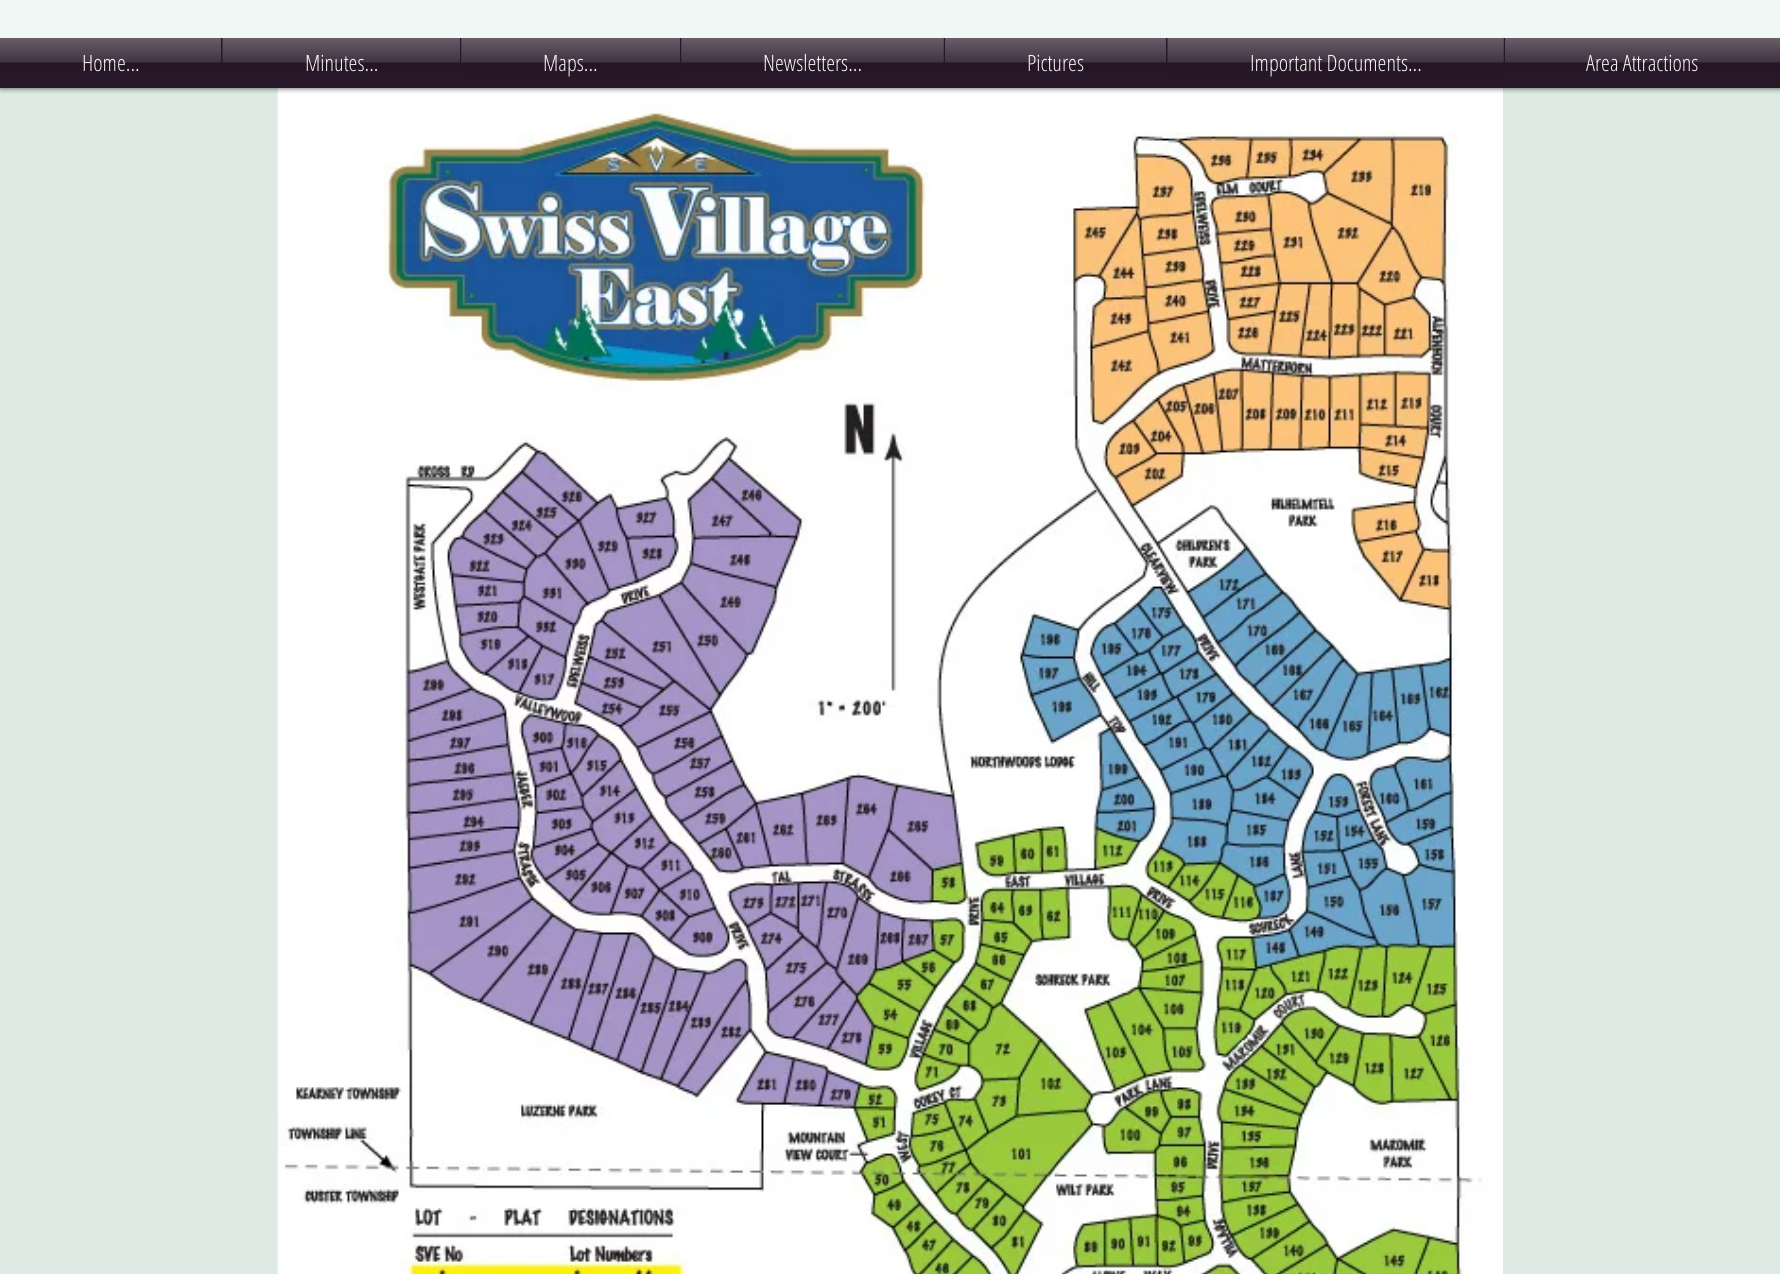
#include <cairo/cairo.h>
#include <math.h>
#include <stddef.h>

static cairo_t *cr;

static void rgb(unsigned color)
{
	cairo_set_source_rgb(cr, (color >> 16) / 255.0, (color >> 8 & 255) / 255.0, (color & 255) / 255.0);
}

static void rrect(double x, double y, double w, double h, double r)
{
	cairo_new_sub_path(cr);
	cairo_arc(cr, x + w - r, y + h - r, r, 0, M_PI / 2);
	cairo_arc(cr, x + r, y + h - r, r, M_PI / 2, M_PI);
	cairo_arc(cr, x + r, y + r, r, M_PI, 1.5 * M_PI);
	cairo_arc(cr, x + w - r, y + r, r, 1.5 * M_PI, 2 * M_PI);
	cairo_close_path(cr);
}

static void soft_shadow(double x, double y, double w, double h, double r, double blur, double alpha)
{
	cairo_push_group_with_content(cr, CAIRO_CONTENT_ALPHA);
	cairo_set_operator(cr, CAIRO_OPERATOR_SOURCE);
	for (int i = 15; i >= -15 && fmin(w, h) + blur * i / 3 > 0; i -= 2) {
		double e = blur * i / 6;
		cairo_set_source_rgba(cr, 0, 0, 0, alpha * erfc((i - 1) / 8.5) / 2);
		rrect(x - e, y - e, w + 2 * e, h + 2 * e, fmax(0, fmin(r + e + blur * .6, fmin(w, h) / 2 + e)));
		cairo_fill(cr);
	}
	cairo_pattern_t *soft = cairo_pop_group(cr);
	cairo_mask(cr, soft);
	cairo_pattern_destroy(soft);
}

static void image(const char *path, double x, double y, double w, double h)
{
	cairo_surface_t *image = cairo_image_surface_create_from_png(path);
	cairo_save(cr);
	cairo_set_source_surface(cr, image, x, y);
	cairo_rectangle(cr, x, y, w, h);
	cairo_fill(cr);
	cairo_restore(cr);
	cairo_surface_destroy(image);
}

int main(void) {
	cairo_surface_t *surface = cairo_image_surface_create(CAIRO_FORMAT_RGB24, 1780, 1274);
	cr = cairo_create(surface);
	cairo_font_options_t *options = cairo_font_options_create();
	cairo_font_options_set_hint_metrics(options, CAIRO_HINT_METRICS_OFF);
	cairo_font_options_set_hint_style(options, CAIRO_HINT_STYLE_NONE);
	cairo_set_font_options(cr, options);
	cairo_set_miter_limit(cr, 4);
	rgb(0xddebe4);
	cairo_paint(cr);
	image("img/8.png", 277, 88, 1225, 1186);
	rgb(0xffffff);
	cairo_rectangle(cr, 1502, 88, 1, 1186);
	cairo_fill(cr);
	cairo_save(cr);
	cairo_rectangle(cr, 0, 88, 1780, 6);
	cairo_clip(cr);
	rgb(0x000000);
	soft_shadow(0, 0, 1780, 88, 0, 3, 0.7);
	cairo_restore(cr);
	cairo_set_source_rgba(cr, 1, 1, 1, 0.6);
	cairo_rectangle(cr, 0, 0, 1780, 38);
	cairo_fill(cr);
	rgb(0x281728);
	cairo_rectangle(cr, 0, 38, 1780, 50);
	cairo_fill(cr);
	cairo_select_font_face(cr, "Open Sans Condensed Light", CAIRO_FONT_SLANT_NORMAL, CAIRO_FONT_WEIGHT_NORMAL);
	cairo_set_font_size(cr, 22.5);
	rgb(0xffffff);
	cairo_move_to(cr, 82, 71);
	cairo_show_text(cr, "Home...");
	image("img/1.png", 0, 38, 221, 34);
	cairo_move_to(cr, 305, 71);
	cairo_show_text(cr, "Minutes...");
	image("img/2.png", 222, 38, 238, 34);
	cairo_move_to(cr, 543, 71);
	cairo_show_text(cr, "Maps...");
	image("img/3.png", 461, 38, 219, 39);
	cairo_move_to(cr, 763, 71);
	cairo_show_text(cr, "Newsletters...");
	image("img/4.png", 681, 38, 263, 34);
	cairo_move_to(cr, 1027, 71);
	cairo_show_text(cr, "Pictures");
	image("img/5.png", 945, 38, 221, 34);
	cairo_move_to(cr, 1250, 71);
	cairo_show_text(cr, "Important Documents...");
	image("img/6.png", 1167, 38, 337, 39);
	cairo_move_to(cr, 1586, 71);
	cairo_show_text(cr, "Area Attractions");
	image("img/7.png", 1505, 38, 275, 34);
	cairo_surface_write_to_png(surface, "page.png");
	cairo_font_options_destroy(options);
	cairo_destroy(cr);
	cairo_surface_destroy(surface);
	return 0;
}
